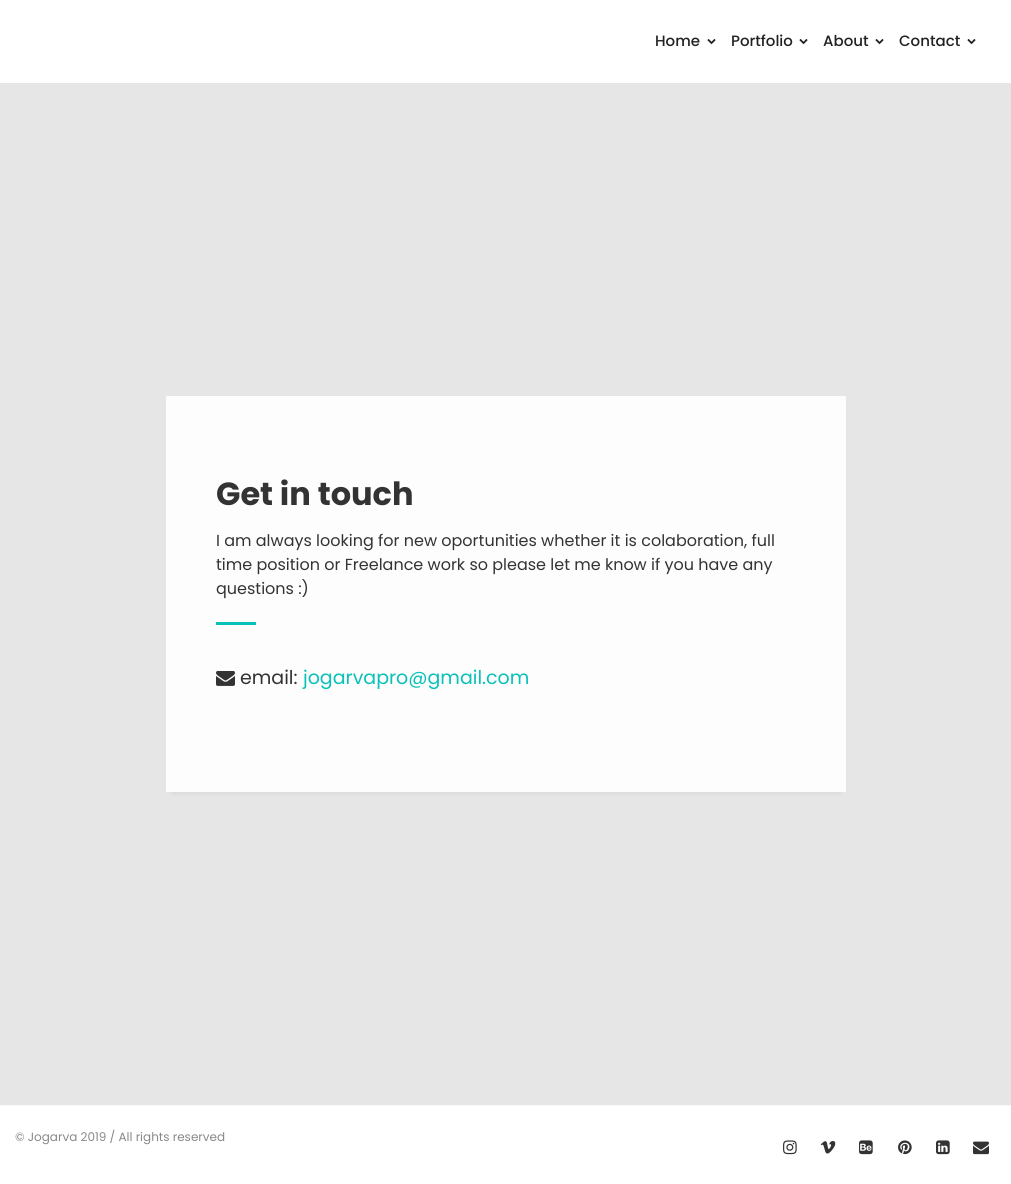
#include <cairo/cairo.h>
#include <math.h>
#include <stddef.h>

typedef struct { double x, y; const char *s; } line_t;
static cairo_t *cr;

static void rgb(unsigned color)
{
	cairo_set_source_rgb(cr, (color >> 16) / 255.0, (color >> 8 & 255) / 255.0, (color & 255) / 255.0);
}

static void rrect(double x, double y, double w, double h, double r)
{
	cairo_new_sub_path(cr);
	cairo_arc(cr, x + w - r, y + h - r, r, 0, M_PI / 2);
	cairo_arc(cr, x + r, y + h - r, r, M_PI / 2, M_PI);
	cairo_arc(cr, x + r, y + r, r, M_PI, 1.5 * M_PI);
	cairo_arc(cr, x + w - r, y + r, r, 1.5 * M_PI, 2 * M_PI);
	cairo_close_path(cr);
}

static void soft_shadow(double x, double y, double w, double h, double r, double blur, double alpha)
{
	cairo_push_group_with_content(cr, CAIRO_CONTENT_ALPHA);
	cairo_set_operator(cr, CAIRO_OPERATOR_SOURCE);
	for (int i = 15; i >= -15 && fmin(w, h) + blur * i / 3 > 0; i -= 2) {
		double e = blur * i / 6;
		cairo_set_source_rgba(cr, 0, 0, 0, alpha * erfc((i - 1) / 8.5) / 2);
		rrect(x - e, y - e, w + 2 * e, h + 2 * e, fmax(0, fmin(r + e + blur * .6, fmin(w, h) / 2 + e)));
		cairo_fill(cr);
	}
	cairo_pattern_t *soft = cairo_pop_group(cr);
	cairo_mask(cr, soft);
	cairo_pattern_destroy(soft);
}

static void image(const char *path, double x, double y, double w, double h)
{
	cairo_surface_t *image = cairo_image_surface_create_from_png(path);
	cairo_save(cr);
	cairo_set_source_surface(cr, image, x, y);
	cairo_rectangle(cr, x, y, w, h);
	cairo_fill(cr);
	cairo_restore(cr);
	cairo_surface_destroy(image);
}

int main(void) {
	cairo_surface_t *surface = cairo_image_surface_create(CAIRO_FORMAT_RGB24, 1011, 1184);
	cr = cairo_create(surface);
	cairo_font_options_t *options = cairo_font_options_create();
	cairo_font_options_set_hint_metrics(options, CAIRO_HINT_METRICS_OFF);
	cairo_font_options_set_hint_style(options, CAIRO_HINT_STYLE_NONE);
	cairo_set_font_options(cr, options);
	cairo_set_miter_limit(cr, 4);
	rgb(0xffffff);
	cairo_paint(cr);
	image("img/1.png", 707, 39, 9, 6);
	image("img/1.png", 799, 39, 9, 6);
	image("img/1.png", 875, 39, 9, 6);
	image("img/1.png", 967, 39, 9, 6);
	rgb(0xe6e6e6);
	cairo_rectangle(cr, 0, 83, 1011, 1022);
	cairo_fill(cr);
	cairo_save(cr);
	cairo_set_fill_rule(cr, CAIRO_FILL_RULE_EVEN_ODD);
	cairo_new_path(cr);
	cairo_move_to(cr, 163, 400);
	cairo_line_to(cr, 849, 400);
	cairo_line_to(cr, 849, 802);
	cairo_line_to(cr, 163, 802);
	cairo_close_path(cr);
	cairo_move_to(cr, 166, 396);
	cairo_line_to(cr, 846, 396);
	cairo_line_to(cr, 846, 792);
	cairo_line_to(cr, 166, 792);
	cairo_close_path(cr);
	cairo_clip(cr);
	rgb(0x000000);
	soft_shadow(172, 409, 668, 384, 0, 2.5, 0.08);
	cairo_restore(cr);
	cairo_set_source_rgba(cr, 1, 1, 1, 0.93);
	cairo_rectangle(cr, 166, 396, 680, 396);
	cairo_fill(cr);
	rgb(0x08c1b8);
	cairo_rectangle(cr, 216, 622, 40, 3);
	cairo_fill(cr);
	image("img/2.png", 216, 671, 19, 15);
	rgb(0xf9f9f9);
	cairo_rectangle(cr, 0, 1105, 1011, 1);
	cairo_fill(cr);
	image("img/3.png", 783, 1140, 14, 15);
	image("img/4.png", 820, 1141, 16, 13);
	image("img/5.png", 859, 1140, 14, 15);
	image("img/6.png", 898, 1140, 14, 15);
	image("img/7.png", 936, 1140, 14, 15);
	image("img/8.png", 973, 1141, 16, 14);
	cairo_select_font_face(cr, "Poppins Medium", CAIRO_FONT_SLANT_NORMAL, CAIRO_FONT_WEIGHT_NORMAL);
	cairo_set_font_size(cr, 15);
	rgb(0x222222);
	{
		static const line_t items[] = {
			{655, 46, "Home"},
			{731, 46, "Portfolio"},
			{823, 46, "About"},
			{899, 46, "Contact"},
		};
		for (size_t i = 0; i < sizeof items / sizeof *items; i++) {
			cairo_move_to(cr, items[i].x, items[i].y);
			cairo_show_text(cr, items[i].s);
		}
	}
	cairo_select_font_face(cr, "Poppins", CAIRO_FONT_SLANT_NORMAL, CAIRO_FONT_WEIGHT_BOLD);
	cairo_set_font_size(cr, 32);
	rgb(0x333333);
	cairo_move_to(cr, 216, 505);
	cairo_show_text(cr, "Get in touch");
	cairo_select_font_face(cr, "Poppins", CAIRO_FONT_SLANT_NORMAL, CAIRO_FONT_WEIGHT_NORMAL);
	cairo_set_font_size(cr, 16);
	{
		static const line_t items[] = {
			{216, 546, "I am always looking for new oportunities whether it is colaboration, full"},
			{216, 570, "time position or Freelance work so please let me know if you have any"},
			{216, 594, "questions :)"},
		};
		for (size_t i = 0; i < sizeof items / sizeof *items; i++) {
			cairo_move_to(cr, items[i].x, items[i].y);
			cairo_show_text(cr, items[i].s);
		}
	}
	cairo_set_font_size(cr, 19);
	cairo_move_to(cr, 240, 684);
	cairo_show_text(cr, "email:");
	rgb(0x08c1b8);
	cairo_move_to(cr, 303, 684);
	cairo_show_text(cr, "jogarvapro@gmail.com");
	cairo_set_font_size(cr, 12);
	rgb(0x888888);
	cairo_move_to(cr, 15, 1141);
	cairo_show_text(cr, "© Jogarva 2019 / All rights reserved");
	cairo_surface_write_to_png(surface, "page.png");
	cairo_font_options_destroy(options);
	cairo_destroy(cr);
	cairo_surface_destroy(surface);
	return 0;
}
